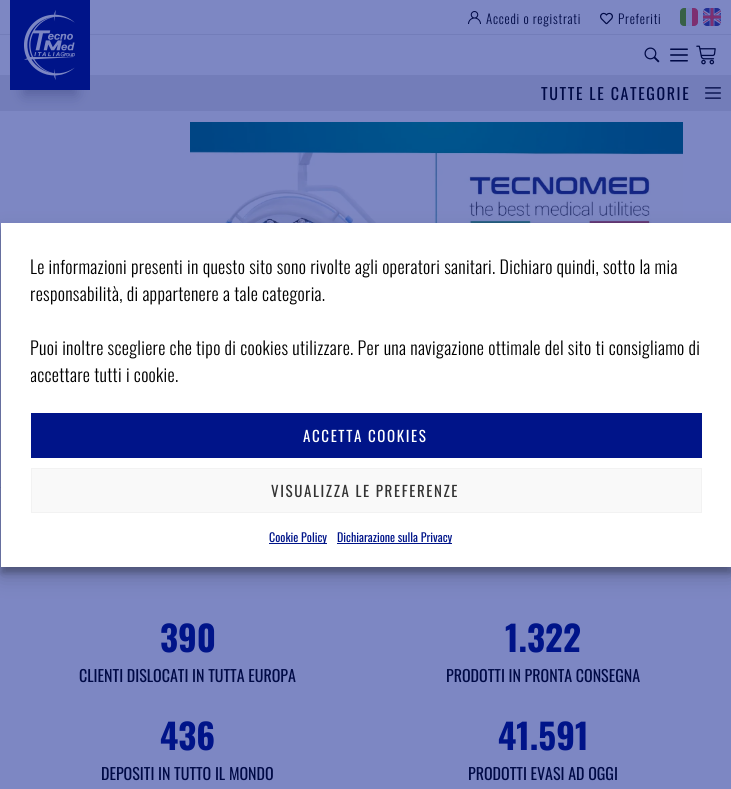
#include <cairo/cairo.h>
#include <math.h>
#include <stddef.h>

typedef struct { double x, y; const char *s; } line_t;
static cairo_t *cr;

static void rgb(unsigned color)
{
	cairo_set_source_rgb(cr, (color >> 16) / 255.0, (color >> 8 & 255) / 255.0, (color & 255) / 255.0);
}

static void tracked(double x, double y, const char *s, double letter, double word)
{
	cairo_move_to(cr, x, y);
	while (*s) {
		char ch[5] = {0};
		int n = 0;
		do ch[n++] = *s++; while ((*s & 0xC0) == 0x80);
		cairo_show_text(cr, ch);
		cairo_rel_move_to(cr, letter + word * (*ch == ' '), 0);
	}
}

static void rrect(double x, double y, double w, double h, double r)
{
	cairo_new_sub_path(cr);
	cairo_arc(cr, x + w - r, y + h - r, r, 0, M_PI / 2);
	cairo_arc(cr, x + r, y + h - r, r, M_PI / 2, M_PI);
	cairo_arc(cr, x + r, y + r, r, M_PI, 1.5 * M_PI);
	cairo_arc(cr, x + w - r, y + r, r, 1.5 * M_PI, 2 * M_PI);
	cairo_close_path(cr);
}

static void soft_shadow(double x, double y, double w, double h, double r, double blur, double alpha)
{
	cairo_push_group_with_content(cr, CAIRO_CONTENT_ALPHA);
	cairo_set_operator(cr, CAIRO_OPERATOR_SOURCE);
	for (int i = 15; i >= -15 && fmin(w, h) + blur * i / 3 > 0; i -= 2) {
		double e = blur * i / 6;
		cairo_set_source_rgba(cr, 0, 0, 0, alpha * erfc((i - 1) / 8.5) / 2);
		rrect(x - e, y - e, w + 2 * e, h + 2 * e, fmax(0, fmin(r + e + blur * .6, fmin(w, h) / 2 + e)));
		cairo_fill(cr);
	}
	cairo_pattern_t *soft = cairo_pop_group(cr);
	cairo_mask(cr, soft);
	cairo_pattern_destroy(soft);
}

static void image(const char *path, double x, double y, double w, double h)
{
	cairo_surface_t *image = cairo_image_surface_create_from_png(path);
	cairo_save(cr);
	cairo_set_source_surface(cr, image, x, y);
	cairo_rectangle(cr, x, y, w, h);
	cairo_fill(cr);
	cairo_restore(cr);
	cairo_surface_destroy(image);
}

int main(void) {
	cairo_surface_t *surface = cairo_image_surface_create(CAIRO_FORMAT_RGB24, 731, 789);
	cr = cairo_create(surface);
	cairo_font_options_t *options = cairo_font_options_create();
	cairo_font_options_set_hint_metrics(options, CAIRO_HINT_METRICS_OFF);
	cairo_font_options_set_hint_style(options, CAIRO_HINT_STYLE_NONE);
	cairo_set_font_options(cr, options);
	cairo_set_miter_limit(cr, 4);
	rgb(0x7d87c3);
	cairo_paint(cr);
	rgb(0x737db9);
	cairo_rectangle(cr, 0, 34, 731, 1);
	cairo_fill(cr);
	cairo_rectangle(cr, 0, 75, 731, 36);
	cairo_fill(cr);
	rgb(0x000a46);
	soft_shadow(24, 33, 52, 62, 0, 7, 0.25);
	rgb(0x001489);
	cairo_rectangle(cr, 10, 0, 80, 90);
	cairo_fill(cr);
	image("img/1.png", 24, 10, 51, 70);
	image("img/2.png", 644, 47, 16, 16);
	image("img/3.png", 670, 48, 18, 14);
	image("img/4.png", 696, 45, 20, 20);
	image("img/5.png", 468, 11, 13, 13);
	image("img/6.png", 600, 12, 13, 13);
	image("img/7.png", 680, 8, 18, 18);
	image("img/8.png", 703, 8, 18, 18);
	image("img/9.png", 705, 87, 16, 12);
	image("img/10.png", 190, 122, 493, 101);
	rgb(0x737db9);
	cairo_rectangle(cr, 0, 487, 1, 1);
	cairo_fill(cr);
	rgb(0x000000);
	soft_shadow(1, 229, 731, 344, 0, 3, 0.23);
	soft_shadow(1, 233, 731, 344, 0, 10, 0.19);
	rgb(0xffffff);
	cairo_rectangle(cr, 1, 223, 730, 344);
	cairo_fill(cr);
	rgb(0x001489);
	cairo_rectangle(cr, 31.5, 413.5, 670, 44);
	cairo_fill_preserve(cr);
	cairo_set_line_width(cr, 1);
	cairo_stroke(cr);
	rgb(0xf9f9f9);
	cairo_rectangle(cr, 31.5, 468.5, 670, 44);
	cairo_fill_preserve(cr);
	rgb(0xf2f2f2);
	cairo_stroke(cr);
	rgb(0x001489);
	cairo_rectangle(cr, 269, 543, 58, 1);
	cairo_fill(cr);
	cairo_rectangle(cr, 337, 543, 115, 1);
	cairo_fill(cr);
	cairo_select_font_face(cr, "Oswald Light", CAIRO_FONT_SLANT_NORMAL, CAIRO_FONT_WEIGHT_NORMAL);
	cairo_set_font_size(cr, 13);
	rgb(0x000a46);
	tracked(486, 24, "Accedi o registrati", 0.75, 0);
	tracked(618, 24, "Preferiti", 0.75, 0);
	cairo_select_font_face(cr, "Oswald", CAIRO_FONT_SLANT_NORMAL, CAIRO_FONT_WEIGHT_NORMAL);
	cairo_set_font_size(cr, 16);
	tracked(541, 100, "TUTTE LE CATEGORIE", 1.6, 0);
	cairo_select_font_face(cr, "Oswald Light", CAIRO_FONT_SLANT_NORMAL, CAIRO_FONT_WEIGHT_NORMAL);
	cairo_set_font_size(cr, 18);
	rgb(0x000000);
	{
		static const line_t items[] = {
			{30, 274, "Le informazioni presenti in questo sito sono rivolte agli operatori sanitari. Dichiaro quindi, sotto la mia"},
			{30, 301, "responsabilità, di appartenere a tale categoria."},
			{30, 355, "Puoi inoltre scegliere che tipo di cookies utilizzare. Per una navigazione ottimale del sito ti consigliamo di"},
		};
		for (size_t i = 0; i < sizeof items / sizeof *items; i++) {
			tracked(items[i].x, items[i].y, items[i].s, 0.3, 0);
		}
	}
	cairo_save(cr);
	cairo_rectangle(cr, 31, 253, 671, 140);
	cairo_clip(cr);
	tracked(30, 382, "accettare tutti i cookie.", 0.3, 0);
	cairo_restore(cr);
	cairo_select_font_face(cr, "Oswald", CAIRO_FONT_SLANT_NORMAL, CAIRO_FONT_WEIGHT_NORMAL);
	cairo_set_font_size(cr, 15);
	rgb(0xffffff);
	tracked(303, 442, "ACCETTA COOKIES", 1.6, 0);
	rgb(0x333333);
	tracked(271, 497, "VISUALIZZA LE PREFERENZE", 1.6, 0);
	cairo_set_font_size(cr, 12);
	rgb(0x001489);
	cairo_move_to(cr, 269, 542);
	cairo_show_text(cr, "Cookie Policy");
	cairo_move_to(cr, 337, 542);
	cairo_show_text(cr, "Dichiarazione sulla Privacy");
	cairo_select_font_face(cr, "Oswald", CAIRO_FONT_SLANT_NORMAL, CAIRO_FONT_WEIGHT_BOLD);
	cairo_set_font_size(cr, 35);
	cairo_move_to(cr, 160, 652);
	cairo_show_text(cr, "390");
	cairo_select_font_face(cr, "Oswald", CAIRO_FONT_SLANT_NORMAL, CAIRO_FONT_WEIGHT_NORMAL);
	cairo_set_font_size(cr, 16);
	rgb(0x000a46);
	cairo_move_to(cr, 79, 682);
	cairo_show_text(cr, "CLIENTI DISLOCATI IN TUTTA EUROPA");
	cairo_select_font_face(cr, "Oswald", CAIRO_FONT_SLANT_NORMAL, CAIRO_FONT_WEIGHT_BOLD);
	cairo_set_font_size(cr, 35);
	rgb(0x001489);
	cairo_move_to(cr, 505, 652);
	cairo_show_text(cr, "1.322");
	cairo_select_font_face(cr, "Oswald", CAIRO_FONT_SLANT_NORMAL, CAIRO_FONT_WEIGHT_NORMAL);
	cairo_set_font_size(cr, 16);
	rgb(0x000a46);
	cairo_move_to(cr, 446, 682);
	cairo_show_text(cr, "PRODOTTI IN PRONTA CONSEGNA");
	cairo_select_font_face(cr, "Oswald", CAIRO_FONT_SLANT_NORMAL, CAIRO_FONT_WEIGHT_BOLD);
	cairo_set_font_size(cr, 35);
	rgb(0x001489);
	cairo_move_to(cr, 160, 750);
	cairo_show_text(cr, "436");
	cairo_select_font_face(cr, "Oswald", CAIRO_FONT_SLANT_NORMAL, CAIRO_FONT_WEIGHT_NORMAL);
	cairo_set_font_size(cr, 16);
	rgb(0x000a46);
	cairo_move_to(cr, 101, 780);
	cairo_show_text(cr, "DEPOSITI IN TUTTO IL MONDO");
	cairo_select_font_face(cr, "Oswald", CAIRO_FONT_SLANT_NORMAL, CAIRO_FONT_WEIGHT_BOLD);
	cairo_set_font_size(cr, 35);
	rgb(0x001489);
	cairo_move_to(cr, 498, 750);
	cairo_show_text(cr, "41.591");
	cairo_select_font_face(cr, "Oswald", CAIRO_FONT_SLANT_NORMAL, CAIRO_FONT_WEIGHT_NORMAL);
	cairo_set_font_size(cr, 16);
	rgb(0x000a46);
	cairo_move_to(cr, 468, 780);
	cairo_show_text(cr, "PRODOTTI EVASI AD OGGI");
	cairo_surface_write_to_png(surface, "page.png");
	cairo_font_options_destroy(options);
	cairo_destroy(cr);
	cairo_surface_destroy(surface);
	return 0;
}
